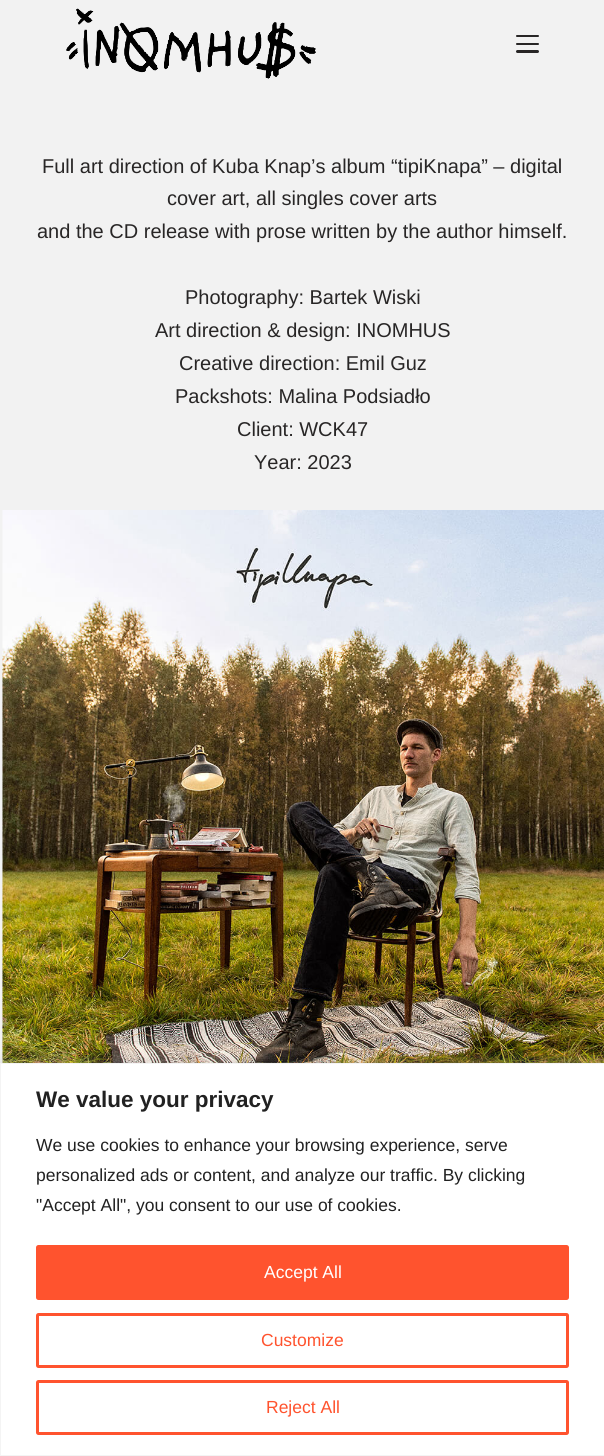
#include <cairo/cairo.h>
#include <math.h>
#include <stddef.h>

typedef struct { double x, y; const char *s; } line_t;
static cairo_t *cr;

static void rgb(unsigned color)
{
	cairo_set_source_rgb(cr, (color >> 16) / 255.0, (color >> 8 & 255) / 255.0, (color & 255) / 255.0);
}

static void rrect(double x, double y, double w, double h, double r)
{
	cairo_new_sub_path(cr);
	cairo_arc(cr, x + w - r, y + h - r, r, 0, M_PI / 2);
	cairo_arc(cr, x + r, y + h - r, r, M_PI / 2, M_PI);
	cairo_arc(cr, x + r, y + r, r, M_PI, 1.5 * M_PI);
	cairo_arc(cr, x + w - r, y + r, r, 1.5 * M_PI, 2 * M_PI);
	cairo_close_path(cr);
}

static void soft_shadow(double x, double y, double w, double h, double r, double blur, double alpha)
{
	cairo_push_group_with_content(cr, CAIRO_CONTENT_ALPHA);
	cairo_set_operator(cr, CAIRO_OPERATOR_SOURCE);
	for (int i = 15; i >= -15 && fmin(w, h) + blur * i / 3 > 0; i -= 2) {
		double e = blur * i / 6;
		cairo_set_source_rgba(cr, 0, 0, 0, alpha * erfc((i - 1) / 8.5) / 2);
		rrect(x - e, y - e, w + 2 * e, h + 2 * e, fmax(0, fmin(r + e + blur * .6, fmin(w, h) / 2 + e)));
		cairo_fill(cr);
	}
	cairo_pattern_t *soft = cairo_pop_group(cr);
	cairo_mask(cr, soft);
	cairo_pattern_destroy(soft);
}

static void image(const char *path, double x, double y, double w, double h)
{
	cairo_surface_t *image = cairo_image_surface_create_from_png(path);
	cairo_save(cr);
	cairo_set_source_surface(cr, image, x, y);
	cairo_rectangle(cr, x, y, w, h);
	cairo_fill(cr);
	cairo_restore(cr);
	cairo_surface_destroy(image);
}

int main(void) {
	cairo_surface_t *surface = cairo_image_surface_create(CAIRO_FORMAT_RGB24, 604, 1456);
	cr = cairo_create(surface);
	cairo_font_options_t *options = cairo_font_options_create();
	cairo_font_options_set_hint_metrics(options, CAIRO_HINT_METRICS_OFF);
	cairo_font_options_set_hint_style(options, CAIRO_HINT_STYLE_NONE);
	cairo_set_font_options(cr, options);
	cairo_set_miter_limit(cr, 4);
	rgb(0xf2f2f2);
	cairo_paint(cr);
	image("img/1.png", 66, 8, 250, 71);
	rgb(0x282626);
	rrect(516, 35, 23, 2, 1);
	cairo_fill(cr);
	rrect(516, 43, 23, 2, 1);
	cairo_fill(cr);
	rrect(516, 50, 23, 3, 1.5);
	cairo_fill(cr);
	image("img/2.png", 2, 510, 602, 553);
	rgb(0xacabab);
	soft_shadow(0, 1061, 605, 394, 0, 6, 0.3);
	rgb(0xffffff);
	cairo_rectangle(cr, 0.5, 1063.5, 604, 392);
	cairo_fill_preserve(cr);
	rgb(0xf4f4f4);
	cairo_set_line_width(cr, 1);
	cairo_stroke(cr);
	rgb(0xff532e);
	rrect(37.5, 1246.5, 530, 52, 1);
	cairo_fill_preserve(cr);
	cairo_set_line_width(cr, 3);
	cairo_stroke(cr);
	rrect(37.5, 1314.5, 530, 52, 1);
	cairo_stroke(cr);
	rrect(37.5, 1381.5, 530, 52, 1);
	cairo_stroke(cr);
	cairo_select_font_face(cr, "Liberation Sans", CAIRO_FONT_SLANT_NORMAL, CAIRO_FONT_WEIGHT_NORMAL);
	cairo_set_font_size(cr, 20);
	rgb(0x282626);
	{
		static const line_t items[] = {
			{42, 173, "Full art direction of Kuba Knap’s album “tipiKnapa” – digital"},
			{167, 205, "cover art, all singles cover arts"},
			{37, 238, "and the CD release with prose written by the author himself."},
			{185, 304, "Photography: Bartek Wiski"},
			{155, 337, "Art direction & design: INOMHUS"},
			{179, 370, "Creative direction: Emil Guz"},
			{175, 403, "Packshots: Malina Podsiadło"},
			{237, 436, "Client: WCK47"},
			{254, 469, "Year: 2023"},
		};
		for (size_t i = 0; i < sizeof items / sizeof *items; i++) {
			cairo_move_to(cr, items[i].x, items[i].y);
			cairo_show_text(cr, items[i].s);
		}
	}
	cairo_select_font_face(cr, "Liberation Sans", CAIRO_FONT_SLANT_NORMAL, CAIRO_FONT_WEIGHT_BOLD);
	cairo_set_font_size(cr, 22.5);
	rgb(0x212121);
	cairo_move_to(cr, 36, 1107);
	cairo_show_text(cr, "We value your privacy");
	cairo_select_font_face(cr, "Liberation Sans", CAIRO_FONT_SLANT_NORMAL, CAIRO_FONT_WEIGHT_NORMAL);
	cairo_set_font_size(cr, 17.5);
	{
		static const line_t items[] = {
			{36, 1151, "We use cookies to enhance your browsing experience, serve"},
			{36, 1181, "personalized ads or content, and analyze our traffic. By clicking"},
			{36, 1211, "\"Accept All\", you consent to our use of cookies."},
		};
		for (size_t i = 0; i < sizeof items / sizeof *items; i++) {
			cairo_move_to(cr, items[i].x, items[i].y);
			cairo_show_text(cr, items[i].s);
		}
	}
	rgb(0xffffff);
	cairo_move_to(cr, 264, 1278);
	cairo_show_text(cr, "Accept All");
	rgb(0xff532e);
	cairo_move_to(cr, 261, 1346);
	cairo_show_text(cr, "Customize");
	cairo_move_to(cr, 266, 1413);
	cairo_show_text(cr, "Reject All");
	cairo_surface_write_to_png(surface, "page.png");
	cairo_font_options_destroy(options);
	cairo_destroy(cr);
	cairo_surface_destroy(surface);
	return 0;
}
